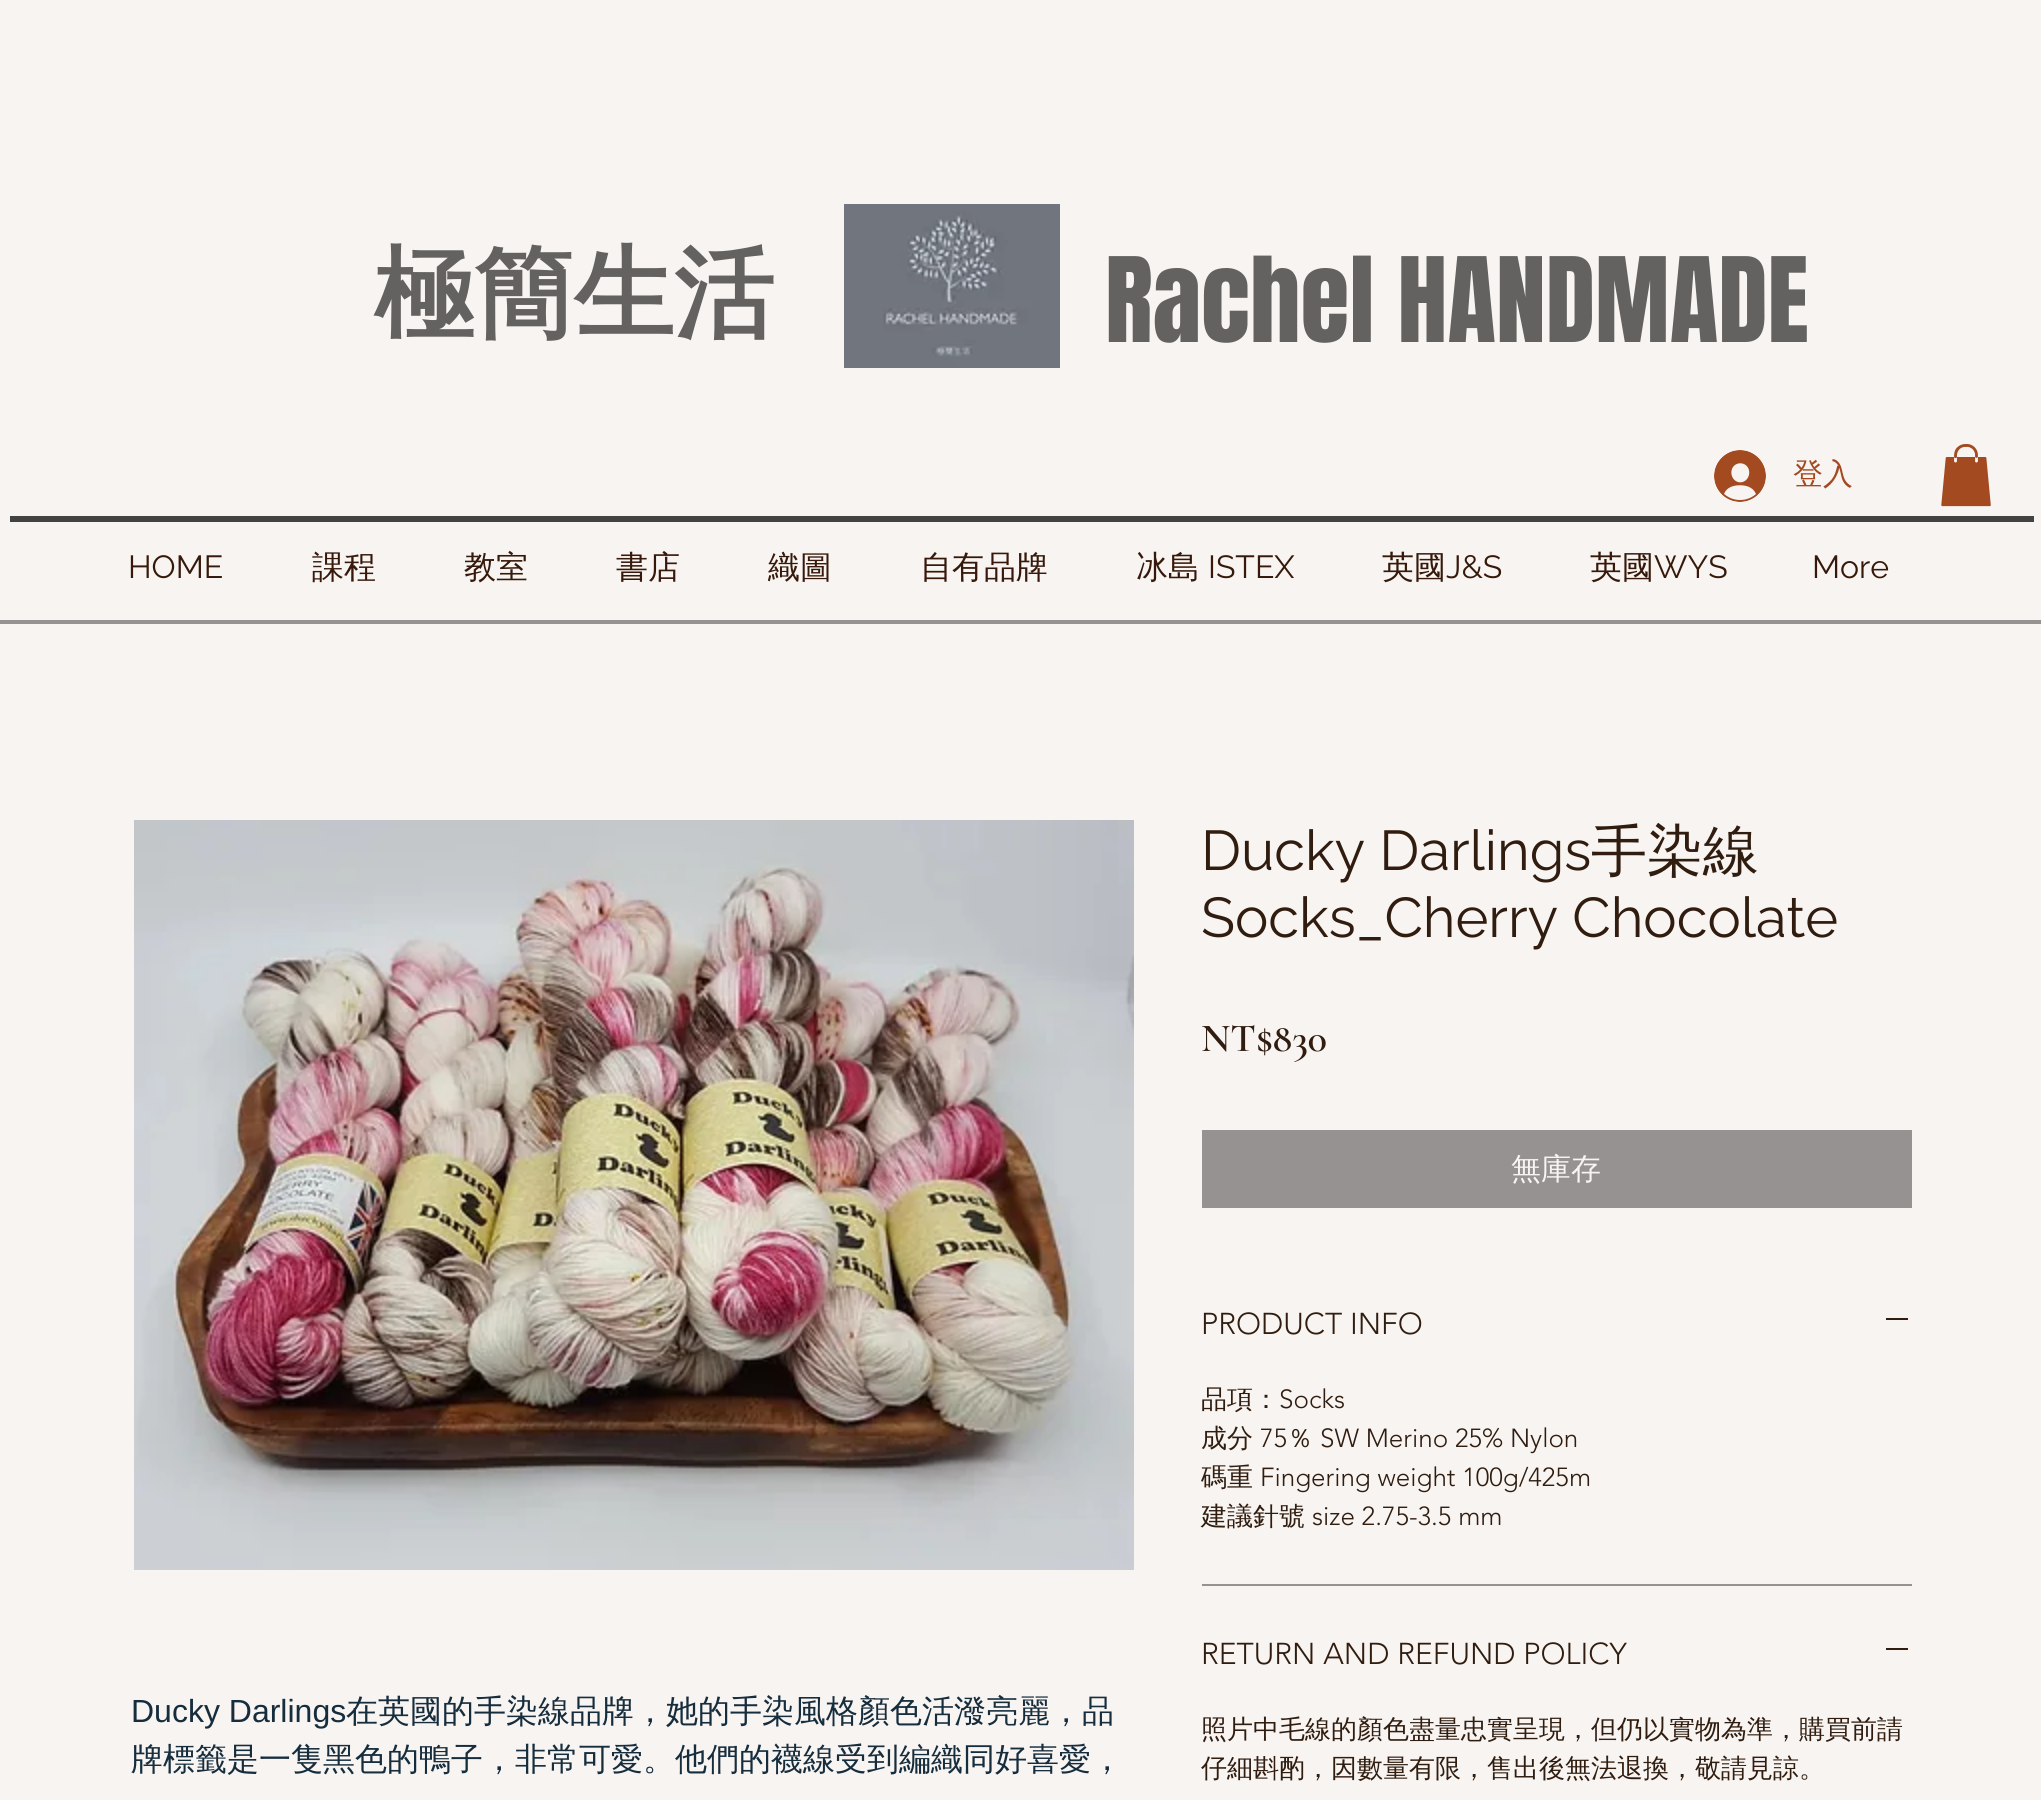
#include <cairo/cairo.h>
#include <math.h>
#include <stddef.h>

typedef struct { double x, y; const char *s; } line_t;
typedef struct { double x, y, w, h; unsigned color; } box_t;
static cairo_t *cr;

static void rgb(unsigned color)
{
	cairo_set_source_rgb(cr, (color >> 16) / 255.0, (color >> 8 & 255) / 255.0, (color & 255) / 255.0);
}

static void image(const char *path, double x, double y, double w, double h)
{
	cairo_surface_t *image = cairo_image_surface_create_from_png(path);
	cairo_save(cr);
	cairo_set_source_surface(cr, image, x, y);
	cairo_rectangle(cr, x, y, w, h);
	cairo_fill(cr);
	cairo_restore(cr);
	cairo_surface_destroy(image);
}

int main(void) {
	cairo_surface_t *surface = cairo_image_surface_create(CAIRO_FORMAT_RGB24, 2041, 1800);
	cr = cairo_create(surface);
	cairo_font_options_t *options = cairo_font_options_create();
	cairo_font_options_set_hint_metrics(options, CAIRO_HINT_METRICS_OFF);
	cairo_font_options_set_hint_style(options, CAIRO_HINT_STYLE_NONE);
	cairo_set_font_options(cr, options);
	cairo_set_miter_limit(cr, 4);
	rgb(0xf8f4f1);
	cairo_paint(cr);
	image("img/1.png", 844, 204, 216, 164);
	image("img/2.png", 1714, 450, 52, 52);
	image("img/3.png", 1941, 444, 50, 63);
	rgb(0x424242);
	cairo_rectangle(cr, 10, 516, 2024, 6);
	cairo_fill(cr);
	rgb(0x959291);
	cairo_rectangle(cr, 0, 620, 2041, 4);
	cairo_fill(cr);
	image("img/4.png", 134, 820, 1000, 750);
	{
		static const box_t items[] = {
			{1202, 1130, 710, 78, 0x959291},
			{1202, 1584, 710, 2, 0x959291},
			{1886, 1318, 22, 2, 0x301d10},
			{1886, 1648, 22, 2, 0x301d10},
		};
		for (size_t i = 0; i < sizeof items / sizeof *items; i++) {
			rgb(items[i].color);
			cairo_rectangle(cr, items[i].x, items[i].y, items[i].w, items[i].h);
			cairo_fill(cr);
		}
	}
	cairo_select_font_face(cr, "WenQuanYi Zen Hei", CAIRO_FONT_SLANT_NORMAL, CAIRO_FONT_WEIGHT_BOLD);
	cairo_set_font_size(cr, 100);
	rgb(0x636260);
	cairo_move_to(cr, 374, 328);
	cairo_show_text(cr, "極簡生活");
	cairo_select_font_face(cr, "Anton", CAIRO_FONT_SLANT_NORMAL, CAIRO_FONT_WEIGHT_NORMAL);
	cairo_move_to(cr, 1105, 342);
	cairo_show_text(cr, "Rachel HANDMADE");
	cairo_select_font_face(cr, "WenQuanYi Zen Hei Medium", CAIRO_FONT_SLANT_NORMAL, CAIRO_FONT_WEIGHT_NORMAL);
	cairo_set_font_size(cr, 30);
	rgb(0xa34a21);
	cairo_move_to(cr, 1793, 484);
	cairo_show_text(cr, "登入");
	cairo_select_font_face(cr, "Raleway", CAIRO_FONT_SLANT_NORMAL, CAIRO_FONT_WEIGHT_NORMAL);
	cairo_set_font_size(cr, 32);
	rgb(0x36190b);
	cairo_move_to(cr, 128, 578);
	cairo_show_text(cr, "HOME");
	cairo_select_font_face(cr, "WenQuanYi Zen Hei Medium", CAIRO_FONT_SLANT_NORMAL, CAIRO_FONT_WEIGHT_NORMAL);
	{
		static const line_t items[] = {
			{312, 578, "課程"},
			{464, 578, "教室"},
			{616, 578, "書店"},
			{768, 578, "織圖"},
			{920, 578, "自有品牌"},
			{1136, 578, "冰島"},
		};
		for (size_t i = 0; i < sizeof items / sizeof *items; i++) {
			cairo_move_to(cr, items[i].x, items[i].y);
			cairo_show_text(cr, items[i].s);
		}
	}
	cairo_select_font_face(cr, "Raleway", CAIRO_FONT_SLANT_NORMAL, CAIRO_FONT_WEIGHT_NORMAL);
	cairo_move_to(cr, 1208, 578);
	cairo_show_text(cr, "ISTEX");
	cairo_select_font_face(cr, "WenQuanYi Zen Hei Medium", CAIRO_FONT_SLANT_NORMAL, CAIRO_FONT_WEIGHT_NORMAL);
	cairo_move_to(cr, 1382, 578);
	cairo_show_text(cr, "英國");
	cairo_select_font_face(cr, "Raleway", CAIRO_FONT_SLANT_NORMAL, CAIRO_FONT_WEIGHT_NORMAL);
	cairo_move_to(cr, 1446, 578);
	cairo_show_text(cr, "J&S");
	cairo_select_font_face(cr, "WenQuanYi Zen Hei Medium", CAIRO_FONT_SLANT_NORMAL, CAIRO_FONT_WEIGHT_NORMAL);
	cairo_move_to(cr, 1590, 578);
	cairo_show_text(cr, "英國");
	cairo_select_font_face(cr, "Raleway", CAIRO_FONT_SLANT_NORMAL, CAIRO_FONT_WEIGHT_NORMAL);
	cairo_move_to(cr, 1654, 578);
	cairo_show_text(cr, "WYS");
	cairo_move_to(cr, 1812, 578);
	cairo_show_text(cr, "More");
	cairo_select_font_face(cr, "Liberation Sans", CAIRO_FONT_SLANT_NORMAL, CAIRO_FONT_WEIGHT_NORMAL);
	rgb(0x162d3d);
	cairo_move_to(cr, 131, 1722);
	cairo_show_text(cr, "Ducky Darlings");
	cairo_select_font_face(cr, "WenQuanYi Zen Hei Medium", CAIRO_FONT_SLANT_NORMAL, CAIRO_FONT_WEIGHT_NORMAL);
	cairo_move_to(cr, 346, 1722);
	cairo_show_text(cr, "在英國的手染線品牌，她的手染風格顏色活潑亮麗，品");
	cairo_move_to(cr, 131, 1770);
	cairo_show_text(cr, "牌標籤是一隻黑色的鴨子，非常可愛。他們的襪線受到編織同好喜愛，");
	cairo_select_font_face(cr, "Raleway", CAIRO_FONT_SLANT_NORMAL, CAIRO_FONT_WEIGHT_NORMAL);
	cairo_set_font_size(cr, 56);
	rgb(0x301d10);
	cairo_move_to(cr, 1201, 870);
	cairo_show_text(cr, "Ducky Darlings");
	cairo_select_font_face(cr, "WenQuanYi Zen Hei Medium", CAIRO_FONT_SLANT_NORMAL, CAIRO_FONT_WEIGHT_NORMAL);
	cairo_move_to(cr, 1591, 870);
	cairo_show_text(cr, "手染線");
	cairo_select_font_face(cr, "Raleway", CAIRO_FONT_SLANT_NORMAL, CAIRO_FONT_WEIGHT_NORMAL);
	cairo_move_to(cr, 1201, 937);
	cairo_show_text(cr, "Socks_Cherry Chocolate");
	cairo_select_font_face(cr, "Cormorant Garamond SemiBold", CAIRO_FONT_SLANT_NORMAL, CAIRO_FONT_WEIGHT_NORMAL);
	cairo_set_font_size(cr, 40);
	cairo_move_to(cr, 1201, 1051);
	cairo_show_text(cr, "NT$830");
	cairo_select_font_face(cr, "WenQuanYi Zen Hei Medium", CAIRO_FONT_SLANT_NORMAL, CAIRO_FONT_WEIGHT_NORMAL);
	cairo_set_font_size(cr, 30);
	rgb(0xf8f4f1);
	cairo_move_to(cr, 1511, 1179);
	cairo_show_text(cr, "無庫存");
	cairo_select_font_face(cr, "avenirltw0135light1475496 Light", CAIRO_FONT_SLANT_NORMAL, CAIRO_FONT_WEIGHT_NORMAL);
	rgb(0x301d10);
	cairo_move_to(cr, 1201, 1334);
	cairo_show_text(cr, "PRODUCT INFO");
	cairo_select_font_face(cr, "WenQuanYi Zen Hei Medium", CAIRO_FONT_SLANT_NORMAL, CAIRO_FONT_WEIGHT_NORMAL);
	cairo_set_font_size(cr, 26);
	cairo_move_to(cr, 1201, 1408);
	cairo_show_text(cr, "品項：");
	cairo_select_font_face(cr, "avenirltw0135light1475496 Light", CAIRO_FONT_SLANT_NORMAL, CAIRO_FONT_WEIGHT_NORMAL);
	cairo_move_to(cr, 1279, 1408);
	cairo_show_text(cr, "Socks");
	cairo_select_font_face(cr, "WenQuanYi Zen Hei Medium", CAIRO_FONT_SLANT_NORMAL, CAIRO_FONT_WEIGHT_NORMAL);
	cairo_move_to(cr, 1201, 1447);
	cairo_show_text(cr, "成分");
	cairo_select_font_face(cr, "avenirltw0135light1475496 Light", CAIRO_FONT_SLANT_NORMAL, CAIRO_FONT_WEIGHT_NORMAL);
	cairo_move_to(cr, 1260, 1447);
	cairo_show_text(cr, "75");
	cairo_select_font_face(cr, "WenQuanYi Zen Hei Medium", CAIRO_FONT_SLANT_NORMAL, CAIRO_FONT_WEIGHT_NORMAL);
	cairo_move_to(cr, 1287, 1447);
	cairo_show_text(cr, "％");
	cairo_select_font_face(cr, "avenirltw0135light1475496 Light", CAIRO_FONT_SLANT_NORMAL, CAIRO_FONT_WEIGHT_NORMAL);
	cairo_move_to(cr, 1320, 1447);
	cairo_show_text(cr, "SW Merino 25% Nylon");
	cairo_select_font_face(cr, "WenQuanYi Zen Hei Medium", CAIRO_FONT_SLANT_NORMAL, CAIRO_FONT_WEIGHT_NORMAL);
	cairo_move_to(cr, 1201, 1486);
	cairo_show_text(cr, "碼重");
	cairo_select_font_face(cr, "avenirltw0135light1475496 Light", CAIRO_FONT_SLANT_NORMAL, CAIRO_FONT_WEIGHT_NORMAL);
	cairo_move_to(cr, 1260, 1486);
	cairo_show_text(cr, "Fingering weight 100g/425m");
	cairo_select_font_face(cr, "WenQuanYi Zen Hei Medium", CAIRO_FONT_SLANT_NORMAL, CAIRO_FONT_WEIGHT_NORMAL);
	cairo_move_to(cr, 1201, 1525);
	cairo_show_text(cr, "建議針號");
	cairo_select_font_face(cr, "avenirltw0135light1475496 Light", CAIRO_FONT_SLANT_NORMAL, CAIRO_FONT_WEIGHT_NORMAL);
	cairo_move_to(cr, 1312, 1525);
	cairo_show_text(cr, "size 2.75-3.5 mm");
	cairo_set_font_size(cr, 30);
	cairo_move_to(cr, 1201, 1664);
	cairo_show_text(cr, "RETURN AND REFUND POLICY");
	cairo_select_font_face(cr, "WenQuanYi Zen Hei Medium", CAIRO_FONT_SLANT_NORMAL, CAIRO_FONT_WEIGHT_NORMAL);
	cairo_set_font_size(cr, 26);
	cairo_move_to(cr, 1201, 1738);
	cairo_show_text(cr, "照片中毛線的顏色盡量忠實呈現，但仍以實物為準，購買前請");
	cairo_move_to(cr, 1201, 1777);
	cairo_show_text(cr, "仔細斟酌，因數量有限，售出後無法退換，敬請見諒。");
	cairo_surface_write_to_png(surface, "page.png");
	cairo_font_options_destroy(options);
	cairo_destroy(cr);
	cairo_surface_destroy(surface);
	return 0;
}
